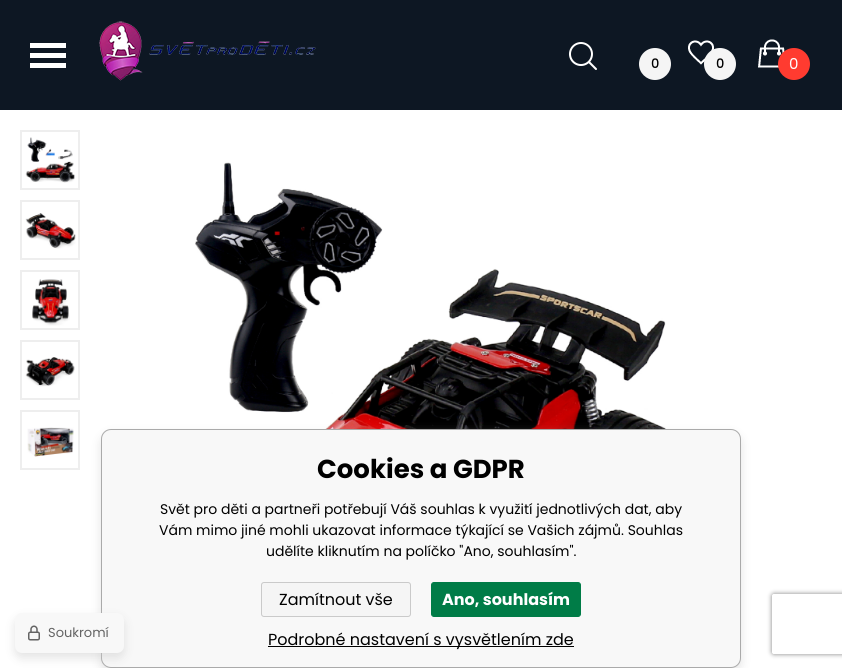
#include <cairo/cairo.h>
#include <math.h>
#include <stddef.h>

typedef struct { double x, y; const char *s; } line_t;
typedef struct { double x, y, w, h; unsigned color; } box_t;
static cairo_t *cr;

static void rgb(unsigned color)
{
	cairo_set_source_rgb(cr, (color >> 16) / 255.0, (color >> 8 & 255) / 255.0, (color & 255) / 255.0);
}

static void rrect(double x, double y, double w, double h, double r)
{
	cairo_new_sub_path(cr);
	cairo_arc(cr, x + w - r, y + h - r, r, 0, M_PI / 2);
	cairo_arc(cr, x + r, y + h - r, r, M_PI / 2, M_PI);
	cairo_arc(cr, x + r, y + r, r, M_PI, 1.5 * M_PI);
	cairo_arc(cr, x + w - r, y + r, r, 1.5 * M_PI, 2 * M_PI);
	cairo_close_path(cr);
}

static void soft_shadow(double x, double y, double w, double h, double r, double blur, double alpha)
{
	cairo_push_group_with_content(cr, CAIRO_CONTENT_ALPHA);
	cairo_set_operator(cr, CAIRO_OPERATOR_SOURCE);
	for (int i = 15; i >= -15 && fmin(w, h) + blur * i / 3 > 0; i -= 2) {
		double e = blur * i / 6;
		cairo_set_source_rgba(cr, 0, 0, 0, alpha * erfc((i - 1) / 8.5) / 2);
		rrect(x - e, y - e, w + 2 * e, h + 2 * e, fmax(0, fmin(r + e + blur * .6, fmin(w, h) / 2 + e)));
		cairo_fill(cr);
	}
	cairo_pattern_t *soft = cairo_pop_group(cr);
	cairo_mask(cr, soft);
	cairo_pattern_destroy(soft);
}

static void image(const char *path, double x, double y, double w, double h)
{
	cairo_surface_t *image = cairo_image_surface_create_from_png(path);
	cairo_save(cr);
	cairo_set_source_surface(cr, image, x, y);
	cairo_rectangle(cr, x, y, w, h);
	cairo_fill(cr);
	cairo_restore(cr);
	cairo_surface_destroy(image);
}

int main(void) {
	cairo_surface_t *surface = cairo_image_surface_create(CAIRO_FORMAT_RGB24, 842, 668);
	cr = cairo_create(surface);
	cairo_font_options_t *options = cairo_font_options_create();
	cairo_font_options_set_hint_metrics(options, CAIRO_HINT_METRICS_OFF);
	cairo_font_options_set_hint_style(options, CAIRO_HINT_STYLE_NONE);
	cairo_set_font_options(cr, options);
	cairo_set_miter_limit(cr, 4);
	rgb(0xffffff);
	cairo_paint(cr);
	{
		static const box_t items[] = {
			{0, 0, 842, 110, 0x0d1723},
			{30, 53, 36, 5, 0xffffff},
			{30, 43, 36, 5, 0xffffff},
			{30, 63, 36, 5, 0xffffff},
		};
		for (size_t i = 0; i < sizeof items / sizeof *items; i++) {
			rgb(items[i].color);
			cairo_rectangle(cr, items[i].x, items[i].y, items[i].w, items[i].h);
			cairo_fill(cr);
		}
	}
	image("img/1.png", 99, 21, 217, 60);
	image("img/2.png", 569, 42, 28, 28);
	rgb(0xf5f5f5);
	cairo_arc(cr, 655, 64, 16, 0, 2 * M_PI);
	cairo_fill(cr);
	image("img/3.png", 688, 40, 26, 25);
	cairo_arc(cr, 720, 64, 16, 0, 2 * M_PI);
	cairo_fill(cr);
	image("img/4.png", 758, 39, 27, 29);
	rgb(0xff3b30);
	cairo_arc(cr, 794, 64, 16, 0, 2 * M_PI);
	cairo_fill(cr);
	image("img/5.png", 25, 137, 50, 46);
	cairo_rectangle(cr, 21, 131, 58, 58);
	rgb(0xeeeeee);
	cairo_stroke(cr);
	image("img/6.png", 25, 213, 51, 36);
	cairo_rectangle(cr, 21, 201, 58, 58);
	cairo_stroke(cr);
	image("img/7.png", 32, 279, 38, 47);
	cairo_rectangle(cr, 21, 271, 58, 58);
	cairo_stroke(cr);
	image("img/8.png", 25, 357, 50, 30);
	cairo_rectangle(cr, 21, 341, 58, 58);
	cairo_stroke(cr);
	image("img/9.png", 27, 427, 47, 30);
	cairo_rectangle(cr, 21, 411, 58, 58);
	cairo_stroke(cr);
	image("img/10.png", 168, 162, 506, 267);
	rgb(0xc8c8c8);
	soft_shadow(101, 434, 640, 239, 10, 5, 0.5);
	rgb(0xf8f8f8);
	rrect(101.5, 429.5, 639, 238, 9.5);
	cairo_fill_preserve(cr);
	rgb(0xaaaaaa);
	cairo_set_line_width(cr, 1);
	cairo_stroke(cr);
	rgb(0xc8c8c8);
	soft_shadow(15, 618, 109, 40, 7, 5, 0.5);
	rgb(0xf8f8f8);
	rrect(15, 613, 109, 40, 7);
	cairo_fill(cr);
	image("img/11.png", 28, 625, 12, 16);
	rgb(0xf5f5f5);
	rrect(261.5, 582.5, 149, 34, 2.5);
	cairo_fill_preserve(cr);
	rgb(0xcacaca);
	cairo_stroke(cr);
	rgb(0x007c47);
	rrect(431.5, 582.5, 149, 34, 2.5);
	cairo_fill_preserve(cr);
	cairo_stroke(cr);
	rgb(0x000000);
	cairo_rectangle(cr, 268, 646, 306, 1);
	cairo_fill(cr);
	cairo_save(cr);
	cairo_set_fill_rule(cr, CAIRO_FILL_RULE_EVEN_ODD);
	cairo_new_path(cr);
	cairo_move_to(cr, 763, 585);
	cairo_line_to(cr, 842, 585);
	cairo_line_to(cr, 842, 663);
	cairo_line_to(cr, 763, 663);
	cairo_close_path(cr);
	cairo_move_to(cr, 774, 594);
	cairo_line_to(cr, 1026, 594);
	cairo_curve_to(cr, 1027, 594, 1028, 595, 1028, 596);
	cairo_line_to(cr, 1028, 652);
	cairo_curve_to(cr, 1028, 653, 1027, 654, 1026, 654);
	cairo_line_to(cr, 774, 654);
	cairo_curve_to(cr, 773, 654, 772, 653, 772, 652);
	cairo_line_to(cr, 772, 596);
	cairo_curve_to(cr, 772, 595, 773, 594, 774, 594);
	cairo_close_path(cr);
	cairo_clip(cr);
	rgb(0x808080);
	soft_shadow(772, 594, 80, 60, 2, 2.5, 1);
	cairo_restore(cr);
	cairo_select_font_face(cr, "Poppins Medium", CAIRO_FONT_SLANT_NORMAL, CAIRO_FONT_WEIGHT_NORMAL);
	cairo_set_font_size(cr, 13);
	cairo_move_to(cr, 651, 68);
	cairo_show_text(cr, "0");
	cairo_move_to(cr, 716, 68);
	cairo_show_text(cr, "0");
	cairo_select_font_face(cr, "Poppins", CAIRO_FONT_SLANT_NORMAL, CAIRO_FONT_WEIGHT_NORMAL);
	cairo_set_font_size(cr, 15);
	rgb(0xffffff);
	cairo_move_to(cr, 789, 69);
	cairo_show_text(cr, "0");
	cairo_set_font_size(cr, 13);
	rgb(0x646464);
	cairo_move_to(cr, 48, 637);
	cairo_show_text(cr, "Soukromí");
	cairo_select_font_face(cr, "Poppins", CAIRO_FONT_SLANT_NORMAL, CAIRO_FONT_WEIGHT_BOLD);
	cairo_set_font_size(cr, 26);
	rgb(0x000000);
	cairo_move_to(cr, 317, 478);
	cairo_show_text(cr, "Cookies a GDPR");
	cairo_select_font_face(cr, "Poppins", CAIRO_FONT_SLANT_NORMAL, CAIRO_FONT_WEIGHT_NORMAL);
	cairo_set_font_size(cr, 14);
	{
		static const line_t items[] = {
			{160, 514, "Svět pro děti a partneři potřebují Váš souhlas k využití jednotlivých dat, aby"},
			{159, 535, "Vám mimo jiné mohli ukazovat informace týkající se Vašich zájmů. Souhlas"},
			{266, 556, "udělíte kliknutím na políčko \"Ano, souhlasím\"."},
		};
		for (size_t i = 0; i < sizeof items / sizeof *items; i++) {
			cairo_move_to(cr, items[i].x, items[i].y);
			cairo_show_text(cr, items[i].s);
		}
	}
	cairo_set_font_size(cr, 16);
	cairo_move_to(cr, 279, 605);
	cairo_show_text(cr, "Zamítnout vše");
	cairo_select_font_face(cr, "Poppins", CAIRO_FONT_SLANT_NORMAL, CAIRO_FONT_WEIGHT_BOLD);
	rgb(0xffffff);
	cairo_move_to(cr, 442, 605);
	cairo_show_text(cr, "Ano, souhlasím");
	cairo_select_font_face(cr, "Poppins", CAIRO_FONT_SLANT_NORMAL, CAIRO_FONT_WEIGHT_NORMAL);
	rgb(0x000000);
	cairo_move_to(cr, 268, 645);
	cairo_show_text(cr, "Podrobné nastavení s vysvětlením zde");
	cairo_surface_write_to_png(surface, "page.png");
	cairo_font_options_destroy(options);
	cairo_destroy(cr);
	cairo_surface_destroy(surface);
	return 0;
}
